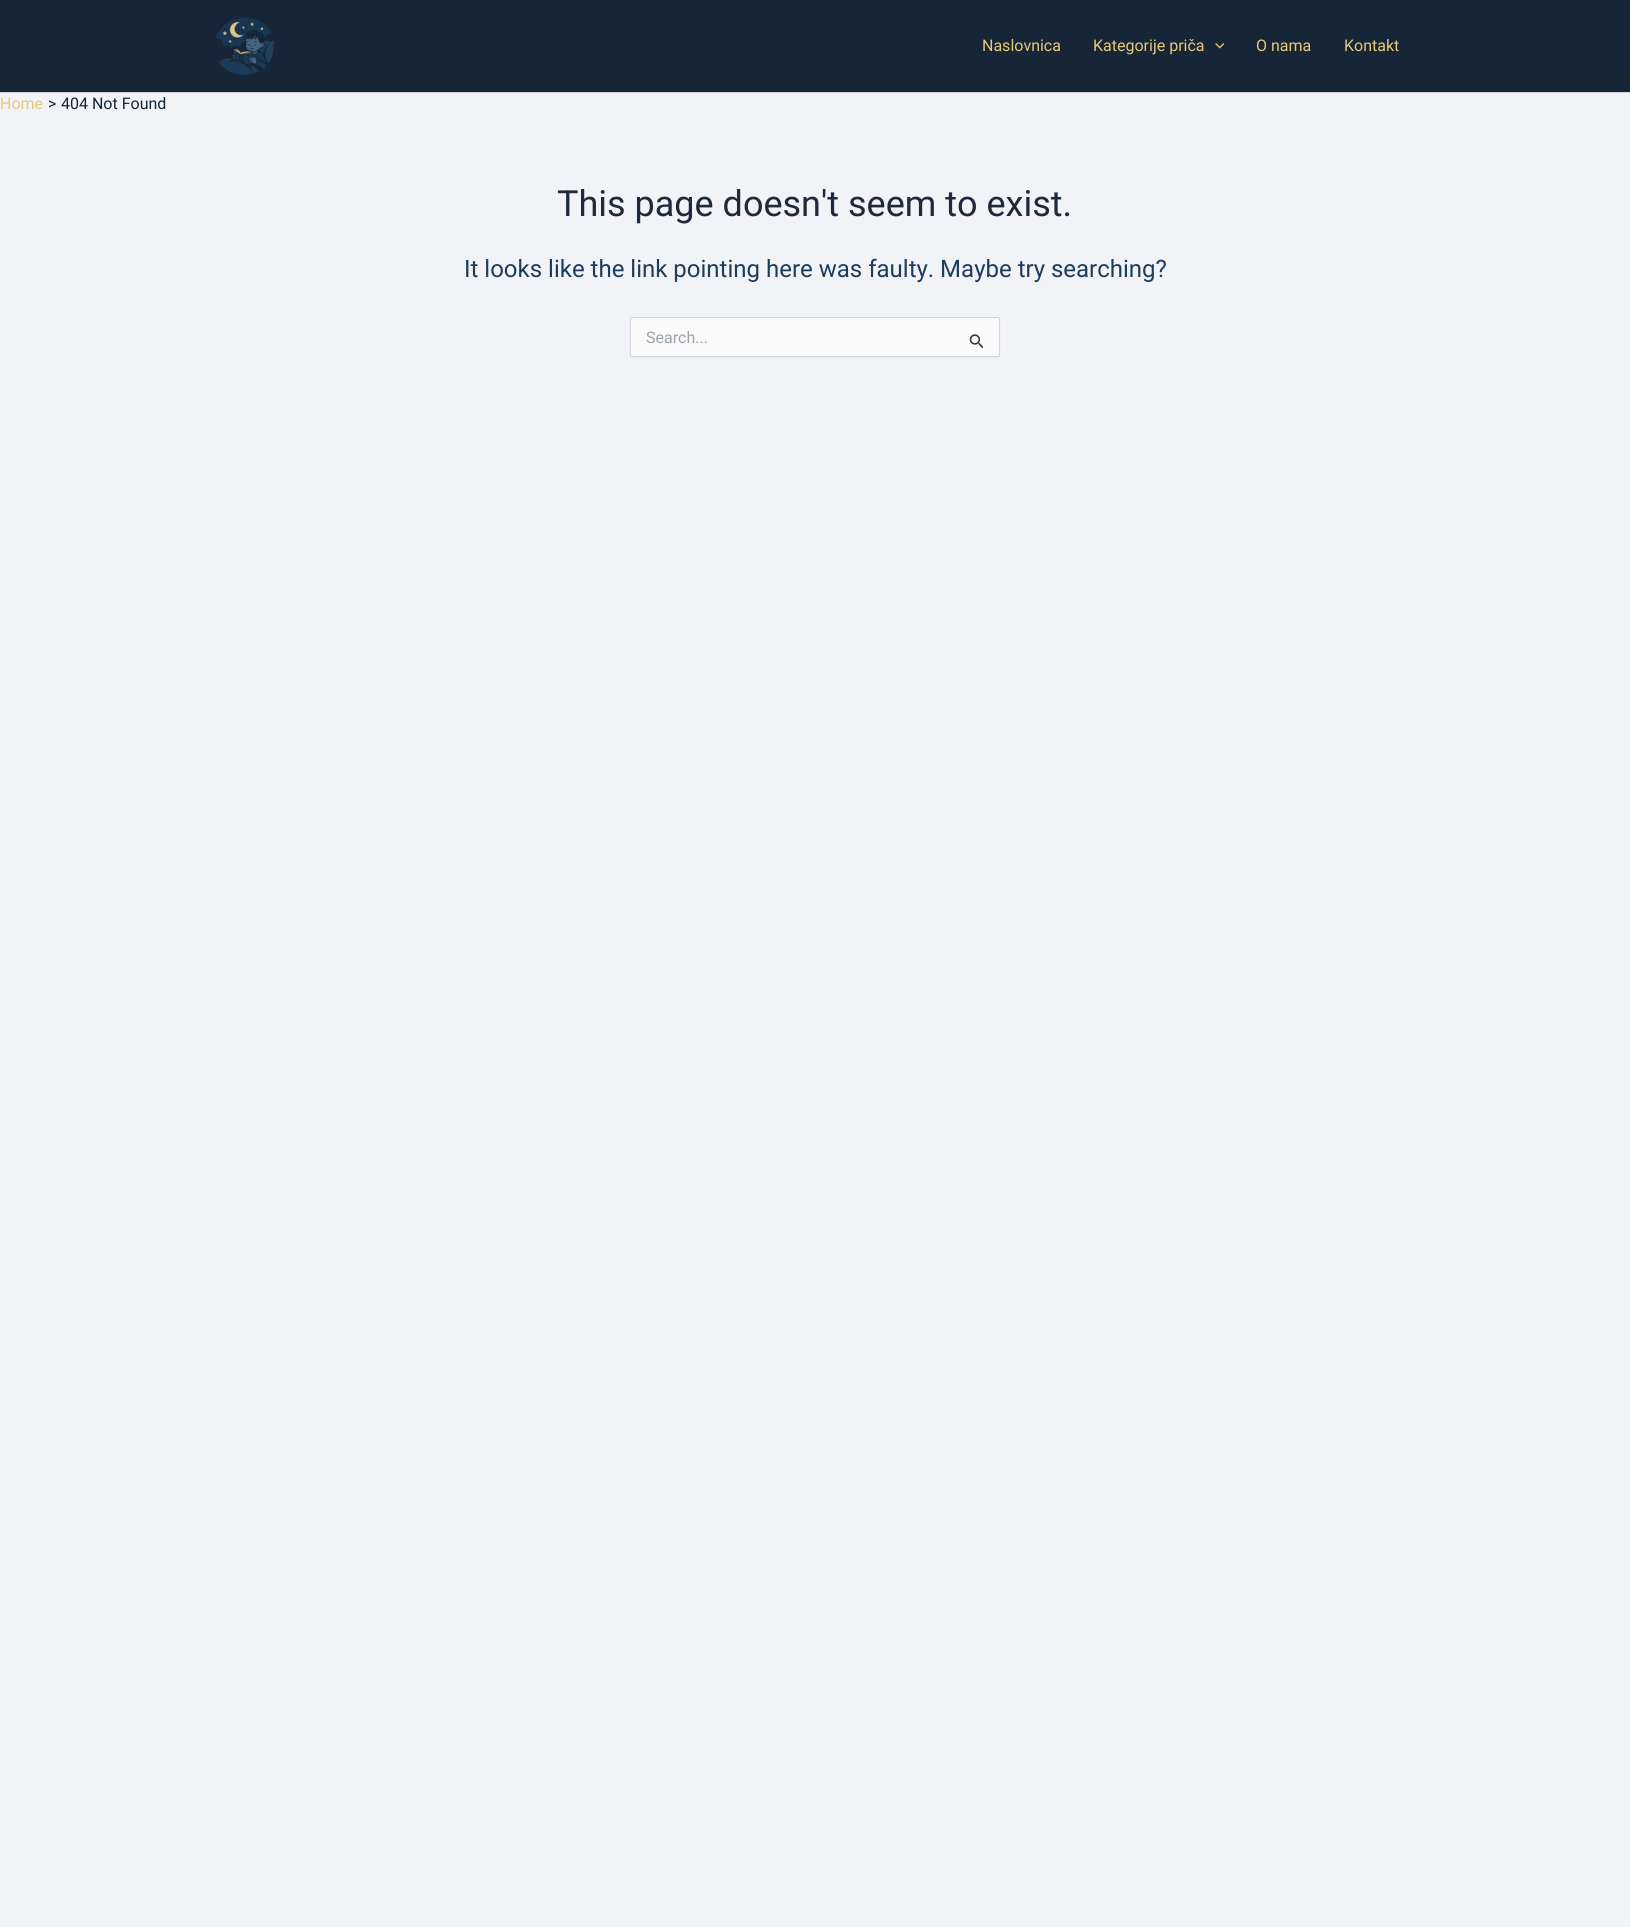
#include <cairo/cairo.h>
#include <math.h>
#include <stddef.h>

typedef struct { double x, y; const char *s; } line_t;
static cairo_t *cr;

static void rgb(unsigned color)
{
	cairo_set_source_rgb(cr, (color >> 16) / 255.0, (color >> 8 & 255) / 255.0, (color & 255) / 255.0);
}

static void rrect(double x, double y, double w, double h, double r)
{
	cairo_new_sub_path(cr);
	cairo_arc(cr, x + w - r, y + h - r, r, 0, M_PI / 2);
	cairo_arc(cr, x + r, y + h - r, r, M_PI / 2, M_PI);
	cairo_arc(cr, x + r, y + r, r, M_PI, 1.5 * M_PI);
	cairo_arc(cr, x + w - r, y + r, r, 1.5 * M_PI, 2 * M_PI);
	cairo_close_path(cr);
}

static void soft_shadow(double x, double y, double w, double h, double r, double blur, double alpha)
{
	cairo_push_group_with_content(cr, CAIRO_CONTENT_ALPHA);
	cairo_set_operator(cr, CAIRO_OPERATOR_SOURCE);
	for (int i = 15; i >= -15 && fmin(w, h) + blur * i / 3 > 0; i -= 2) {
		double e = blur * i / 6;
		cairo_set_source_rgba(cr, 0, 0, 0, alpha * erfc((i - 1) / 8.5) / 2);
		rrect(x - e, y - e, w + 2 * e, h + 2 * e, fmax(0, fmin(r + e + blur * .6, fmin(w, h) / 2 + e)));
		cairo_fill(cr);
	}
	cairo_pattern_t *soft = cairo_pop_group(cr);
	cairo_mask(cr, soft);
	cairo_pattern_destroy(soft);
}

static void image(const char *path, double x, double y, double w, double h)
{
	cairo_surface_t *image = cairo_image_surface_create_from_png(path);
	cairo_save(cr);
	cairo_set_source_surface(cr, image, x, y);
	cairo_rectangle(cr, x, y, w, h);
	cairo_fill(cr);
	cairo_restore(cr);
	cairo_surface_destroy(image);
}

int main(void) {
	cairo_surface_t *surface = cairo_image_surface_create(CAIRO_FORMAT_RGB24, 1630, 1927);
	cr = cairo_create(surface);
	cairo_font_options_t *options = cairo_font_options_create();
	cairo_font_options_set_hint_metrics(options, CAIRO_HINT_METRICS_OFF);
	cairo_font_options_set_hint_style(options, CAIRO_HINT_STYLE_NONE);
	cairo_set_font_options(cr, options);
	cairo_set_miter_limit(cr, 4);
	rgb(0xf1f3f6);
	cairo_paint(cr);
	rgb(0x162637);
	cairo_rectangle(cr, 0, 0, 1630, 92);
	cairo_fill(cr);
	rgb(0xd1d5db);
	cairo_rectangle(cr, 0, 92, 1630, 1);
	cairo_fill(cr);
	image("img/1.png", 215, 17, 60, 58);
	image("img/2.png", 1215, 43, 9, 6);
	rgb(0x000000);
	soft_shadow(630, 318, 370, 40, 2, 1, 0.05);
	rgb(0xfafafa);
	rrect(630.5, 317.5, 369, 39, 1.5);
	cairo_fill_preserve(cr);
	rgb(0xd1d5db);
	cairo_set_line_width(cr, 1);
	cairo_stroke(cr);
	image("img/3.png", 969, 334, 14, 15);
	cairo_select_font_face(cr, "Roboto", CAIRO_FONT_SLANT_NORMAL, CAIRO_FONT_WEIGHT_NORMAL);
	cairo_set_font_size(cr, 16);
	rgb(0xe8c87c);
	{
		static const line_t items[] = {
			{982, 51, "Naslovnica"},
			{1093, 51, "Kategorije priča"},
			{1256, 51, "O nama"},
			{1344, 51, "Kontakt"},
			{0, 109, "Home"},
		};
		for (size_t i = 0; i < sizeof items / sizeof *items; i++) {
			cairo_move_to(cr, items[i].x, items[i].y);
			cairo_show_text(cr, items[i].s);
		}
	}
	rgb(0x142537);
	cairo_move_to(cr, 48, 109);
	cairo_show_text(cr, ">");
	cairo_move_to(cr, 61, 109);
	cairo_show_text(cr, "404 Not Found");
	cairo_set_font_size(cr, 36);
	rgb(0x1e293b);
	cairo_move_to(cr, 557, 216);
	cairo_show_text(cr, "This page doesn't seem to exist.");
	cairo_set_font_size(cr, 24);
	rgb(0x1c3d5d);
	cairo_move_to(cr, 464, 277);
	cairo_show_text(cr, "It looks like the link pointing here was faulty. Maybe try searching?");
	cairo_set_font_size(cr, 16);
	rgb(0x9ca3af);
	cairo_move_to(cr, 646, 343);
	cairo_show_text(cr, "Search...");
	cairo_surface_write_to_png(surface, "page.png");
	cairo_font_options_destroy(options);
	cairo_destroy(cr);
	cairo_surface_destroy(surface);
	return 0;
}
